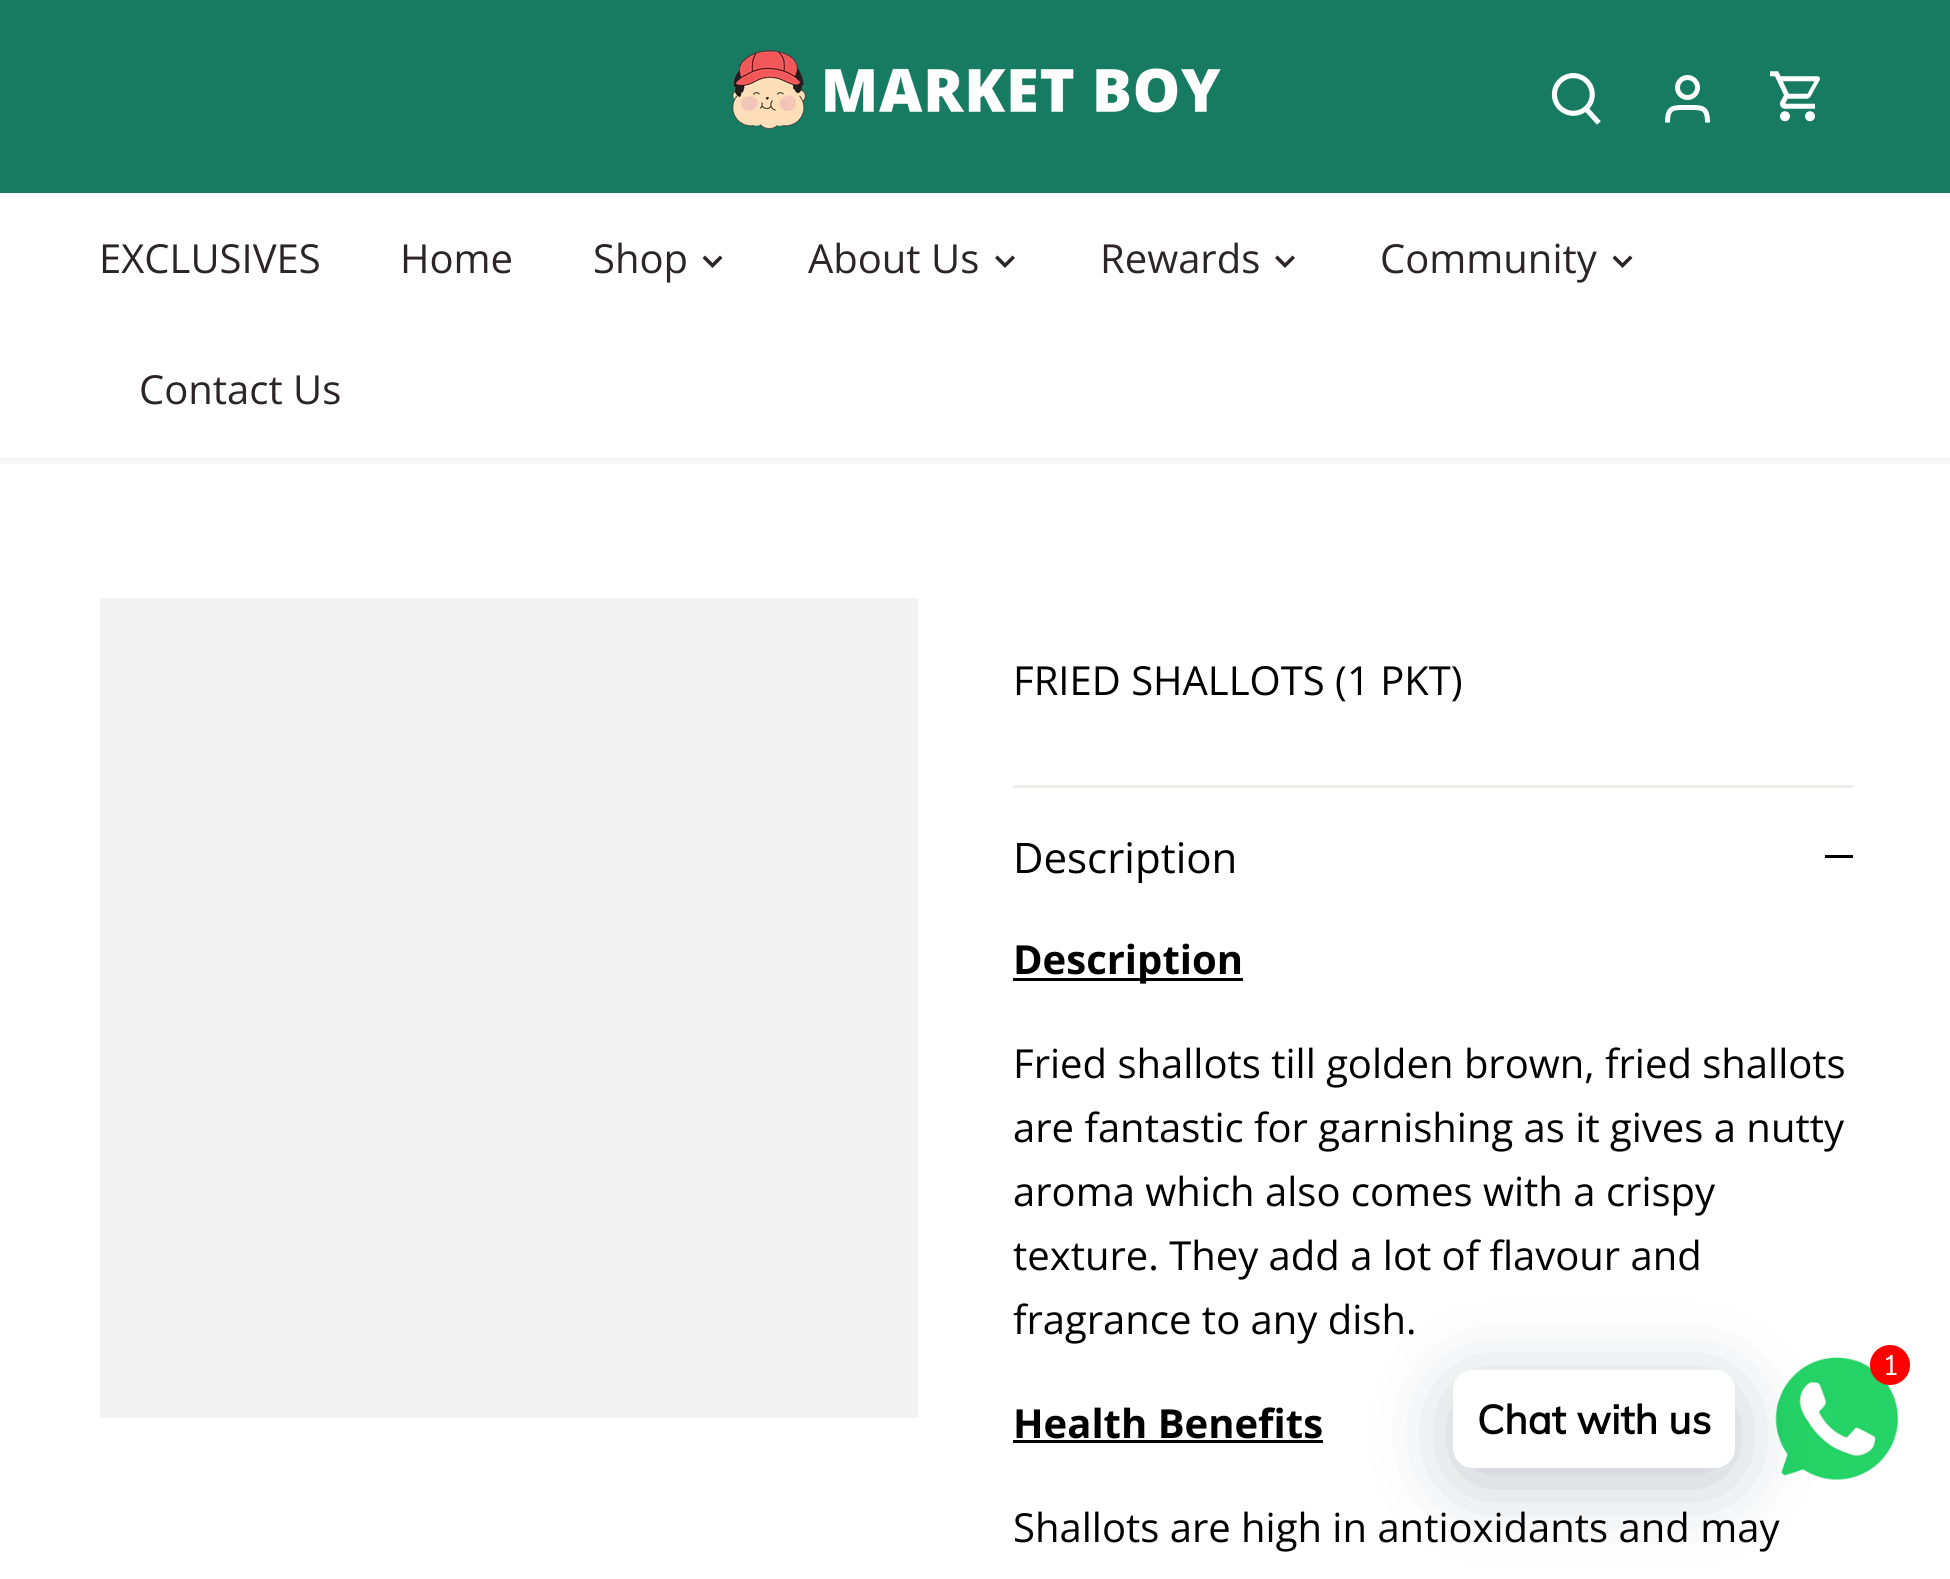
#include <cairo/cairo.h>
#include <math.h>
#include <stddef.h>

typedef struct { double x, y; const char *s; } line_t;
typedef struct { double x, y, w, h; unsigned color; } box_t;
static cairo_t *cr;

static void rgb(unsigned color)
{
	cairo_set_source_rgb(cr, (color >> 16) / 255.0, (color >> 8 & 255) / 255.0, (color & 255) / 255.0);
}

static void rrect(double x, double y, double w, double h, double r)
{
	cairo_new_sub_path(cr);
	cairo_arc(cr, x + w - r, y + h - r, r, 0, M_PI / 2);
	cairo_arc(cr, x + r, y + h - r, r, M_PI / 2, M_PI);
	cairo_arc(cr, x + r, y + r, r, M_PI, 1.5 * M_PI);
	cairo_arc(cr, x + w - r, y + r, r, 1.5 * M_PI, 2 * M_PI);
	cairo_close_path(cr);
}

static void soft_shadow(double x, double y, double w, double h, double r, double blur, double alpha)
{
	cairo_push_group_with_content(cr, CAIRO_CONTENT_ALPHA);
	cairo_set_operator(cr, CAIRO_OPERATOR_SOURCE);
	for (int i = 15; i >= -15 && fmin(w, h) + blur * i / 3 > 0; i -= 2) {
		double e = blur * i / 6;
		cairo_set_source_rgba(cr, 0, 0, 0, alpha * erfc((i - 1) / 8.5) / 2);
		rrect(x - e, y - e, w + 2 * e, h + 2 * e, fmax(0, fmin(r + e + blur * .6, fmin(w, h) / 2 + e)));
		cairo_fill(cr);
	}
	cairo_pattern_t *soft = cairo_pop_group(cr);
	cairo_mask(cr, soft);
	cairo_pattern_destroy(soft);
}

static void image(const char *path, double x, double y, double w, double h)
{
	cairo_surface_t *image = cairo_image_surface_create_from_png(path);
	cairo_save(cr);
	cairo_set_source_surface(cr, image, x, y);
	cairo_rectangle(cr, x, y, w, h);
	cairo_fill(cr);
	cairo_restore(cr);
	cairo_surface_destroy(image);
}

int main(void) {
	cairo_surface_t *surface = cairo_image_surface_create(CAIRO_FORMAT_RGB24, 1950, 1579);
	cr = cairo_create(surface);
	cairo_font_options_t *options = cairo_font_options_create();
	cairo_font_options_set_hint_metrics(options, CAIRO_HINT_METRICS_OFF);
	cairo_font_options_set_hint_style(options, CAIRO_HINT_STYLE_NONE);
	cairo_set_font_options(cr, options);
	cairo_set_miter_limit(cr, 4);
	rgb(0xffffff);
	cairo_paint(cr);
	rgb(0x000000);
	soft_shadow(-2, -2, 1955, 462, 0, 4, 0.08);
	rgb(0xffffff);
	cairo_rectangle(cr, 0, 193, 1950, 265);
	cairo_fill(cr);
	rgb(0x167b61);
	cairo_rectangle(cr, 0, 0, 1950, 193);
	cairo_fill(cr);
	image("img/1.png", 732, 50, 489, 80);
	image("img/2.png", 1551, 73, 50, 52);
	cairo_arc(cr, 1687.5, 87.5, 10, 0, 2 * M_PI);
	rgb(0xffffff);
	cairo_set_line_width(cr, 5);
	cairo_stroke(cr);
	cairo_new_path(cr);
	cairo_move_to(cr, 1707.5, 122.5);
	cairo_curve_to(cr, 1707.5, 106.5, 1701.5, 107.5, 1687.5, 107.5);
	cairo_curve_to(cr, 1673.5, 107.5, 1667.5, 106.5, 1667.5, 122.5);
	cairo_stroke(cr);
	image("img/3.png", 1770, 71, 50, 51);
	rgb(0x2c2528);
	cairo_new_path(cr);
	cairo_move_to(cr, 705, 255.5);
	cairo_line_to(cr, 712.5, 263);
	cairo_line_to(cr, 720, 255.5);
	cairo_line_to(cr, 722.5, 258);
	cairo_line_to(cr, 712.5, 268);
	cairo_line_to(cr, 702.5, 258);
	cairo_close_path(cr);
	cairo_fill(cr);
	cairo_new_path(cr);
	cairo_move_to(cr, 997.5, 255.5);
	cairo_line_to(cr, 1005, 263);
	cairo_line_to(cr, 1012.5, 255.5);
	cairo_line_to(cr, 1015, 258);
	cairo_line_to(cr, 1005, 268);
	cairo_line_to(cr, 995, 258);
	cairo_close_path(cr);
	cairo_fill(cr);
	cairo_new_path(cr);
	cairo_move_to(cr, 1277.5, 255.5);
	cairo_line_to(cr, 1285, 263);
	cairo_line_to(cr, 1292.5, 255.5);
	cairo_line_to(cr, 1295, 258);
	cairo_line_to(cr, 1285, 268);
	cairo_line_to(cr, 1275, 258);
	cairo_close_path(cr);
	cairo_fill(cr);
	cairo_new_path(cr);
	cairo_move_to(cr, 1615, 255.5);
	cairo_line_to(cr, 1622.5, 263);
	cairo_line_to(cr, 1630, 255.5);
	cairo_line_to(cr, 1632.5, 258);
	cairo_line_to(cr, 1622.5, 268);
	cairo_line_to(cr, 1612.5, 258);
	cairo_close_path(cr);
	cairo_fill(cr);
	{
		static const box_t items[] = {
			{100, 598, 818, 820, 0xf3f3f3},
			{1013, 785, 840, 3, 0xeeebeb},
			{1825, 855, 28, 3, 0x000000},
			{1013, 978, 230, 3, 0x000000},
			{1013, 1440, 310, 3, 0x000000},
		};
		for (size_t i = 0; i < sizeof items / sizeof *items; i++) {
			rgb(items[i].color);
			cairo_rectangle(cr, items[i].x, items[i].y, items[i].w, items[i].h);
			cairo_fill(cr);
		}
	}
	image("img/4.png", 1775, 1357, 123, 123);
	rgb(0xff0000);
	cairo_arc(cr, 1890, 1365, 20, 0, 2 * M_PI);
	cairo_fill(cr);
	rgb(0x00122e);
	soft_shadow(1453, 1385, 282, 98, 20, 40, 0.24);
	rgb(0xffffff);
	rrect(1453, 1370, 282, 98, 20);
	cairo_fill(cr);
	cairo_select_font_face(cr, "Open Sans", CAIRO_FONT_SLANT_NORMAL, CAIRO_FONT_WEIGHT_NORMAL);
	cairo_set_font_size(cr, 40);
	rgb(0x2c2528);
	{
		static const line_t items[] = {
			{99, 273, "EXCLUSIVES"},
			{400, 273, "Home"},
			{593, 273, "Shop"},
			{808, 273, "About Us"},
			{1100, 273, "Rewards"},
			{1380, 273, "Community"},
			{139, 404, "Contact Us"},
		};
		for (size_t i = 0; i < sizeof items / sizeof *items; i++) {
			cairo_move_to(cr, items[i].x, items[i].y);
			cairo_show_text(cr, items[i].s);
		}
	}
	rgb(0x000000);
	cairo_move_to(cr, 1013, 695);
	cairo_show_text(cr, "FRIED SHALLOTS (1 PKT)");
	cairo_set_font_size(cr, 42);
	cairo_move_to(cr, 1013, 873);
	cairo_show_text(cr, "Description");
	cairo_select_font_face(cr, "Open Sans", CAIRO_FONT_SLANT_NORMAL, CAIRO_FONT_WEIGHT_BOLD);
	cairo_set_font_size(cr, 40);
	cairo_move_to(cr, 1013, 974);
	cairo_show_text(cr, "Description");
	cairo_select_font_face(cr, "Open Sans", CAIRO_FONT_SLANT_NORMAL, CAIRO_FONT_WEIGHT_NORMAL);
	{
		static const line_t items[] = {
			{1013, 1078, "Fried shallots till golden brown, fried shallots"},
			{1013, 1142, "are fantastic for garnishing as it gives a nutty"},
			{1013, 1206, "aroma which also comes with a crispy"},
			{1013, 1270, "texture. They add a lot of flavour and"},
			{1013, 1334, "fragrance to any dish."},
		};
		for (size_t i = 0; i < sizeof items / sizeof *items; i++) {
			cairo_move_to(cr, items[i].x, items[i].y);
			cairo_show_text(cr, items[i].s);
		}
	}
	cairo_select_font_face(cr, "Open Sans", CAIRO_FONT_SLANT_NORMAL, CAIRO_FONT_WEIGHT_BOLD);
	cairo_move_to(cr, 1013, 1438);
	cairo_show_text(cr, "Health Benefits");
	cairo_select_font_face(cr, "Open Sans", CAIRO_FONT_SLANT_NORMAL, CAIRO_FONT_WEIGHT_NORMAL);
	cairo_move_to(cr, 1013, 1542);
	cairo_show_text(cr, "Shallots are high in antioxidants and may");
	cairo_select_font_face(cr, "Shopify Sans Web", CAIRO_FONT_SLANT_NORMAL, CAIRO_FONT_WEIGHT_NORMAL);
	cairo_set_font_size(cr, 28);
	rgb(0xffffff);
	cairo_move_to(cr, 1885, 1375);
	cairo_show_text(cr, "1");
	cairo_select_font_face(cr, "Muli", CAIRO_FONT_SLANT_NORMAL, CAIRO_FONT_WEIGHT_BOLD);
	cairo_set_font_size(cr, 40);
	rgb(0x000000);
	cairo_move_to(cr, 1477, 1434);
	cairo_show_text(cr, "Chat with us");
	cairo_surface_write_to_png(surface, "page.png");
	cairo_font_options_destroy(options);
	cairo_destroy(cr);
	cairo_surface_destroy(surface);
	return 0;
}
